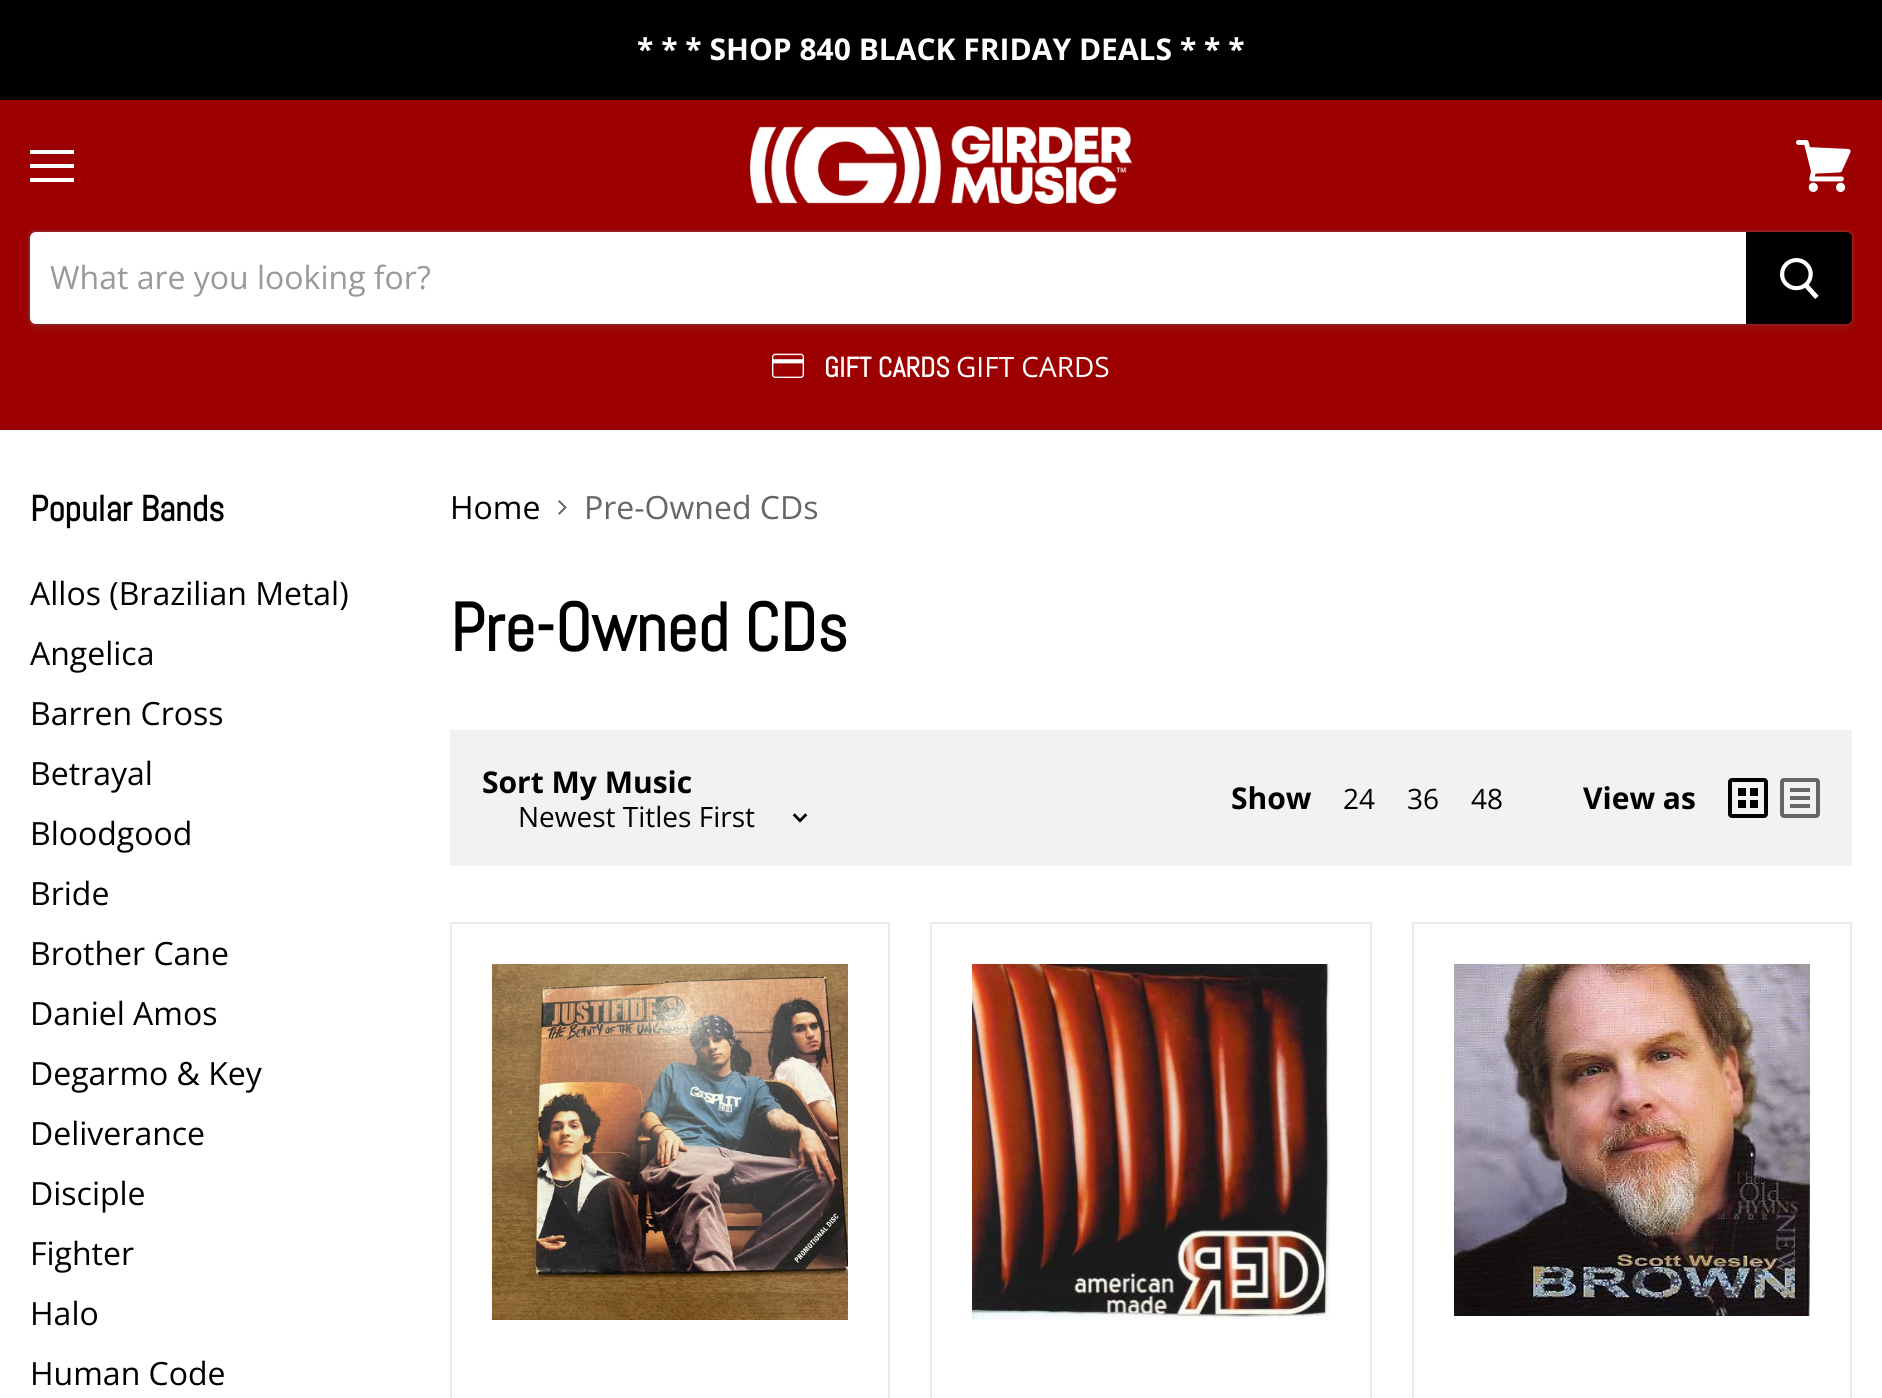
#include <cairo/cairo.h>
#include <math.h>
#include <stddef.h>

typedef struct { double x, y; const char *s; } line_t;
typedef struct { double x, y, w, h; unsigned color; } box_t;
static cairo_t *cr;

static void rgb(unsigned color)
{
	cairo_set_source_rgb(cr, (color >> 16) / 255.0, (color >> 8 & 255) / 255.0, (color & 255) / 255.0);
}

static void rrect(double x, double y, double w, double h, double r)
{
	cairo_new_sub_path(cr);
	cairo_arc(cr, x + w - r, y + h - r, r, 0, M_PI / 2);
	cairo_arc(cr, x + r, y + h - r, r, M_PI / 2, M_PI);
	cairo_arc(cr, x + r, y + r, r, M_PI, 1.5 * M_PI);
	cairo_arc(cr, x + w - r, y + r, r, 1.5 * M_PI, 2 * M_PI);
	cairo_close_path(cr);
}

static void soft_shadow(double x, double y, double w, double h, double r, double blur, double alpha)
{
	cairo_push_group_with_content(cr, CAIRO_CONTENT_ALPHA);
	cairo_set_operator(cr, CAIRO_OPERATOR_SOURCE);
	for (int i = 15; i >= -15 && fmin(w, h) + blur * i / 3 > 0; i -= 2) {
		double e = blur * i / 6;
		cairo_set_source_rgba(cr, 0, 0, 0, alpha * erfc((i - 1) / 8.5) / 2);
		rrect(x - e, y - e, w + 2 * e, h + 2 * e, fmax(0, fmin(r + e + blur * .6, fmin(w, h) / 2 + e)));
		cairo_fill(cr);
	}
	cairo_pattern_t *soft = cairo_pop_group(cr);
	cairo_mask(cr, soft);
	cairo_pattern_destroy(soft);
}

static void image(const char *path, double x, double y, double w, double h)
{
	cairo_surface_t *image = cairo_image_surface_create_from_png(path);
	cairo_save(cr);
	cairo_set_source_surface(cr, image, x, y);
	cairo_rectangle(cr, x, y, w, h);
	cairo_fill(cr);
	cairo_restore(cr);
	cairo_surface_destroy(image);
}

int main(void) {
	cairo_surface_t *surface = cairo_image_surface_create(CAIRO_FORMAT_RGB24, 1882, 1398);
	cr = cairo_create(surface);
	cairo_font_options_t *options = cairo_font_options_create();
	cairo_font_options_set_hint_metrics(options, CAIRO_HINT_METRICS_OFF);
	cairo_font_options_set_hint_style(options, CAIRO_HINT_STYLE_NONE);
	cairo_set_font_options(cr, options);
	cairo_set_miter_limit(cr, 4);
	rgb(0xffffff);
	cairo_paint(cr);
	{
		static const box_t items[] = {
			{0, 100, 1882, 330, 0x9d0000},
			{0, 0, 1882, 100, 0x000000},
			{30, 150, 44, 4, 0xffffff},
			{30, 164, 44, 4, 0xffffff},
			{30, 178, 44, 4, 0xffffff},
		};
		for (size_t i = 0; i < sizeof items / sizeof *items; i++) {
			rgb(items[i].color);
			cairo_rectangle(cr, items[i].x, items[i].y, items[i].w, items[i].h);
			cairo_fill(cr);
		}
	}
	image("img/1.png", 1796, 140, 55, 52);
	image("img/2.png", 750, 126, 382, 78);
	cairo_save(cr);
	cairo_set_fill_rule(cr, CAIRO_FILL_RULE_EVEN_ODD);
	cairo_new_path(cr);
	cairo_move_to(cr, 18, 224);
	cairo_line_to(cr, 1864, 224);
	cairo_line_to(cr, 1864, 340);
	cairo_line_to(cr, 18, 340);
	cairo_close_path(cr);
	cairo_move_to(cr, 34, 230);
	cairo_line_to(cr, 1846, 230);
	cairo_curve_to(cr, 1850.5, 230, 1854, 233.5, 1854, 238);
	cairo_line_to(cr, 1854, 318);
	cairo_curve_to(cr, 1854, 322.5, 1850.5, 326, 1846, 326);
	cairo_line_to(cr, 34, 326);
	cairo_curve_to(cr, 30.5, 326, 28, 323.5, 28, 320);
	cairo_line_to(cr, 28, 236);
	cairo_curve_to(cr, 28, 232.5, 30.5, 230, 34, 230);
	cairo_close_path(cr);
	cairo_clip(cr);
	rgb(0x7f7f7f);
	soft_shadow(28, 234, 1826, 96, 8, 3, 0.11);
	cairo_restore(cr);
	cairo_new_path(cr);
	cairo_move_to(cr, 34, 231);
	cairo_line_to(cr, 1846, 231);
	cairo_curve_to(cr, 1850, 231, 1853, 234, 1853, 238);
	cairo_line_to(cr, 1853, 318);
	cairo_curve_to(cr, 1853, 322, 1850, 325, 1846, 325);
	cairo_line_to(cr, 34, 325);
	cairo_curve_to(cr, 31, 325, 29, 323, 29, 320);
	cairo_line_to(cr, 29, 236);
	cairo_curve_to(cr, 29, 233, 31, 231, 34, 231);
	cairo_close_path(cr);
	cairo_set_source_rgba(cr, 0.498, 0.498, 0.498, 0.2);
	cairo_stroke(cr);
	rgb(0xffffff);
	cairo_new_path(cr);
	cairo_move_to(cr, 36, 232);
	cairo_line_to(cr, 1746, 232);
	cairo_line_to(cr, 1746, 324);
	cairo_line_to(cr, 36, 324);
	cairo_curve_to(cr, 32.5, 324, 30, 321.5, 30, 318);
	cairo_line_to(cr, 30, 238);
	cairo_curve_to(cr, 30, 234.5, 32.5, 232, 36, 232);
	cairo_close_path(cr);
	cairo_fill(cr);
	rgb(0x000000);
	cairo_new_path(cr);
	cairo_move_to(cr, 1747, 233);
	cairo_line_to(cr, 1846, 233);
	cairo_curve_to(cr, 1849, 233, 1851, 235, 1851, 238);
	cairo_line_to(cr, 1851, 318);
	cairo_curve_to(cr, 1851, 321, 1849, 323, 1846, 323);
	cairo_line_to(cr, 1747, 323);
	cairo_close_path(cr);
	cairo_fill_preserve(cr);
	cairo_stroke(cr);
	image("img/3.png", 1780, 258, 39, 41);
	image("img/4.png", 772, 353, 32, 25);
	image("img/5.png", 558, 500, 9, 15);
	rgb(0xf2f2f2);
	cairo_rectangle(cr, 450, 730, 1402, 136);
	cairo_fill(cr);
	image("img/6.png", 792, 813, 16, 10);
	image("img/7.png", 1728, 778, 40, 40);
	image("img/8.png", 1780, 778, 40, 40);
	cairo_rectangle(cr, 451, 923, 438, 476);
	rgb(0xebebeb);
	cairo_stroke(cr);
	image("img/9.png", 492, 964, 356, 356);
	cairo_rectangle(cr, 931, 923, 440, 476);
	cairo_stroke(cr);
	image("img/10.png", 972, 964, 358, 356);
	cairo_rectangle(cr, 1413, 923, 438, 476);
	cairo_stroke(cr);
	image("img/11.png", 1454, 964, 356, 352);
	cairo_select_font_face(cr, "Open Sans", CAIRO_FONT_SLANT_NORMAL, CAIRO_FONT_WEIGHT_BOLD);
	cairo_set_font_size(cr, 30);
	rgb(0xffffff);
	cairo_move_to(cr, 637, 60);
	cairo_show_text(cr, "* * * SHOP 840 BLACK FRIDAY DEALS * * *");
	cairo_select_font_face(cr, "Open Sans", CAIRO_FONT_SLANT_NORMAL, CAIRO_FONT_WEIGHT_NORMAL);
	cairo_set_font_size(cr, 32);
	rgb(0x999999);
	cairo_move_to(cr, 50, 289);
	cairo_show_text(cr, "What are you looking for?");
	cairo_select_font_face(cr, "Abel", CAIRO_FONT_SLANT_NORMAL, CAIRO_FONT_WEIGHT_BOLD);
	cairo_set_font_size(cr, 28);
	rgb(0xffffff);
	cairo_move_to(cr, 824, 377);
	cairo_show_text(cr, "GIFT CARDS");
	cairo_select_font_face(cr, "Open Sans", CAIRO_FONT_SLANT_NORMAL, CAIRO_FONT_WEIGHT_NORMAL);
	cairo_move_to(cr, 956, 377);
	cairo_show_text(cr, "GIFT CARDS");
	cairo_select_font_face(cr, "Abel", CAIRO_FONT_SLANT_NORMAL, CAIRO_FONT_WEIGHT_BOLD);
	cairo_set_font_size(cr, 36);
	rgb(0x000000);
	cairo_move_to(cr, 30, 521);
	cairo_show_text(cr, "Popular Bands");
	cairo_select_font_face(cr, "Open Sans", CAIRO_FONT_SLANT_NORMAL, CAIRO_FONT_WEIGHT_NORMAL);
	cairo_set_font_size(cr, 32);
	{
		static const line_t items[] = {
			{30, 605, "Allos (Brazilian Metal)"},
			{30, 665, "Angelica"},
			{30, 725, "Barren Cross"},
			{30, 785, "Betrayal"},
			{30, 845, "Bloodgood"},
			{30, 905, "Bride"},
			{30, 965, "Brother Cane"},
			{30, 1025, "Daniel Amos"},
			{30, 1085, "Degarmo & Key"},
			{30, 1145, "Deliverance"},
			{30, 1205, "Disciple"},
			{30, 1265, "Fighter"},
			{30, 1325, "Halo"},
			{30, 1385, "Human Code"},
			{450, 519, "Home"},
		};
		for (size_t i = 0; i < sizeof items / sizeof *items; i++) {
			cairo_move_to(cr, items[i].x, items[i].y);
			cairo_show_text(cr, items[i].s);
		}
	}
	rgb(0x666666);
	cairo_move_to(cr, 584, 519);
	cairo_show_text(cr, "Pre-Owned CDs");
	cairo_select_font_face(cr, "Abel", CAIRO_FONT_SLANT_NORMAL, CAIRO_FONT_WEIGHT_BOLD);
	cairo_set_font_size(cr, 68);
	rgb(0x000000);
	cairo_move_to(cr, 450, 651);
	cairo_show_text(cr, "Pre-Owned CDs");
	cairo_select_font_face(cr, "Open Sans", CAIRO_FONT_SLANT_NORMAL, CAIRO_FONT_WEIGHT_BOLD);
	cairo_set_font_size(cr, 30);
	cairo_move_to(cr, 482, 793);
	cairo_show_text(cr, "Sort My Music");
	cairo_select_font_face(cr, "Open Sans", CAIRO_FONT_SLANT_NORMAL, CAIRO_FONT_WEIGHT_NORMAL);
	cairo_set_font_size(cr, 28);
	cairo_move_to(cr, 518, 827);
	cairo_show_text(cr, "Newest Titles First");
	cairo_select_font_face(cr, "Open Sans", CAIRO_FONT_SLANT_NORMAL, CAIRO_FONT_WEIGHT_BOLD);
	cairo_set_font_size(cr, 30);
	cairo_move_to(cr, 1231, 809);
	cairo_show_text(cr, "Show");
	cairo_select_font_face(cr, "Open Sans", CAIRO_FONT_SLANT_NORMAL, CAIRO_FONT_WEIGHT_NORMAL);
	cairo_set_font_size(cr, 28);
	{
		static const line_t items[] = {
			{1343, 809, "24"},
			{1407, 809, "36"},
			{1471, 809, "48"},
		};
		for (size_t i = 0; i < sizeof items / sizeof *items; i++) {
			cairo_move_to(cr, items[i].x, items[i].y);
			cairo_show_text(cr, items[i].s);
		}
	}
	cairo_select_font_face(cr, "Open Sans", CAIRO_FONT_SLANT_NORMAL, CAIRO_FONT_WEIGHT_BOLD);
	cairo_set_font_size(cr, 30);
	cairo_move_to(cr, 1583, 809);
	cairo_show_text(cr, "View as");
	cairo_surface_write_to_png(surface, "page.png");
	cairo_font_options_destroy(options);
	cairo_destroy(cr);
	cairo_surface_destroy(surface);
	return 0;
}
